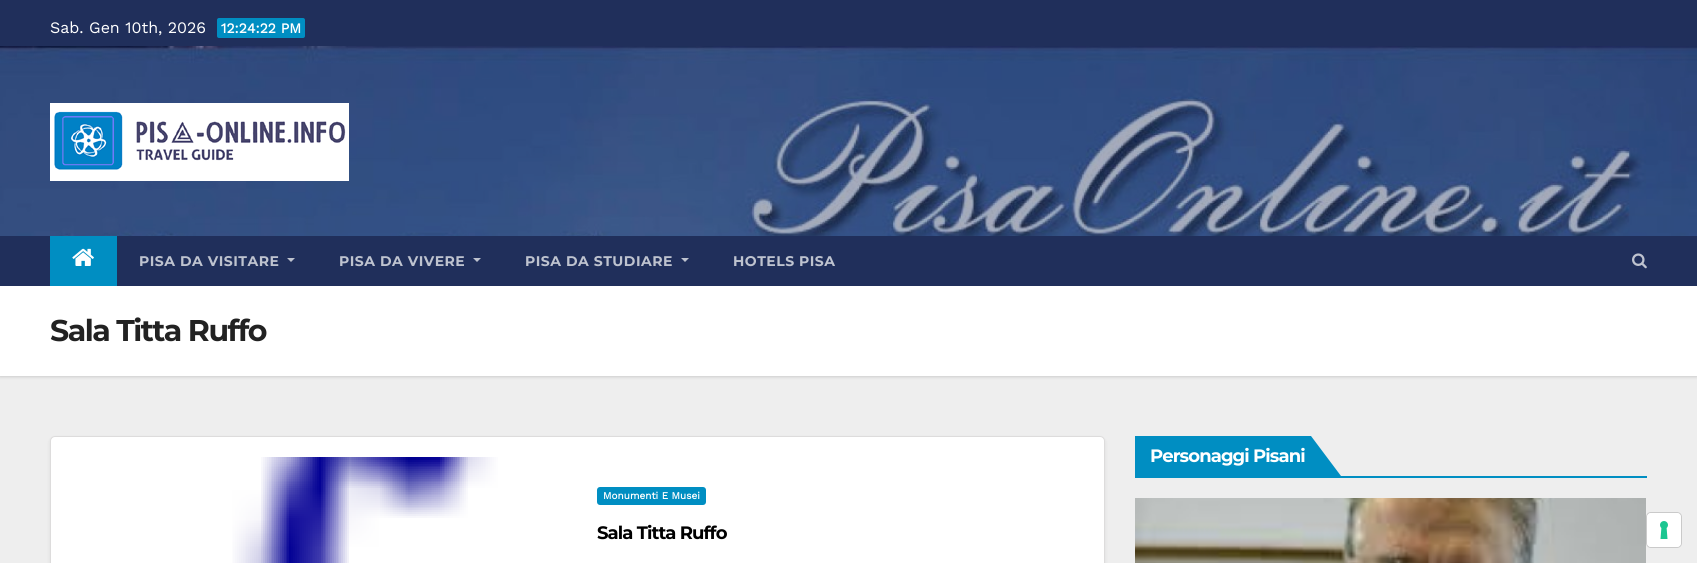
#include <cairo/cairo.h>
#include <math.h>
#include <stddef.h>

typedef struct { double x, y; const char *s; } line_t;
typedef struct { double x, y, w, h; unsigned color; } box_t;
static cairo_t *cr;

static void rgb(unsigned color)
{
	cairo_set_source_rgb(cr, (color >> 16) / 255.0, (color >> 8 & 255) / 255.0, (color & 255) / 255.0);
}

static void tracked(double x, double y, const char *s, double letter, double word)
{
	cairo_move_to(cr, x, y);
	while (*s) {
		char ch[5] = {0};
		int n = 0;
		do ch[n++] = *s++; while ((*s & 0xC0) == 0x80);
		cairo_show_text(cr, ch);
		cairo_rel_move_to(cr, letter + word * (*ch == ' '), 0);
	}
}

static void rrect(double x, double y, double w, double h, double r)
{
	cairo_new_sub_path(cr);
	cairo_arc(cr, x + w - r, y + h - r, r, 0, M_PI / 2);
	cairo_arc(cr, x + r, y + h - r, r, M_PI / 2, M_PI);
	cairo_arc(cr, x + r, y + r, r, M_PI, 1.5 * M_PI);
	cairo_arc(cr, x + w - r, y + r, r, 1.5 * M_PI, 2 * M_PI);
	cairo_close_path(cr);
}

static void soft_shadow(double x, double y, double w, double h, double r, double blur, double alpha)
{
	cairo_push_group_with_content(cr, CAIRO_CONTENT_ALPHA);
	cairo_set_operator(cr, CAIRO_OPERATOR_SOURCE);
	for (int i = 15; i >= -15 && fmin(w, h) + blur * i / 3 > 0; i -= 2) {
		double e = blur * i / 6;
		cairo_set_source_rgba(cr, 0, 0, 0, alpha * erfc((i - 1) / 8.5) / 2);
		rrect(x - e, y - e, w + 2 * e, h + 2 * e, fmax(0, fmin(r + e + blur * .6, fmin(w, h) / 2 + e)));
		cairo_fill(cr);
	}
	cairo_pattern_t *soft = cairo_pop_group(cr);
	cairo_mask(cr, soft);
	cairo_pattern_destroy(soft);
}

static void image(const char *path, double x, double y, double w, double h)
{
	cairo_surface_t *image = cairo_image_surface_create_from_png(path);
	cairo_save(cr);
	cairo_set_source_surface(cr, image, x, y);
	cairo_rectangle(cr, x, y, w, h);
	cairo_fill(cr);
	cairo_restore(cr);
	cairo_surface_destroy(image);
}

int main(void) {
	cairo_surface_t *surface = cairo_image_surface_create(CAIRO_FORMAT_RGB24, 1697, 563);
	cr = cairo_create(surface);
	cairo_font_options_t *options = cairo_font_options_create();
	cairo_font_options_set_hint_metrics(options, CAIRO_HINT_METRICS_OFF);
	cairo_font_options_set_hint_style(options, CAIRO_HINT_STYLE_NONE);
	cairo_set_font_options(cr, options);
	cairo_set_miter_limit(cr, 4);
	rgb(0xeeeeee);
	cairo_paint(cr);
	rgb(0x202f5b);
	cairo_rectangle(cr, 0, 0, 1697, 46);
	cairo_fill(cr);
	rgb(0x008ec2);
	rrect(217, 18, 88, 20, 2);
	cairo_fill(cr);
	image("img/1.png", 0, 46, 1697, 190);
	image("img/2.png", 50, 103, 299, 78);
	rgb(0x000000);
	soft_shadow(0, 287, 1697, 90, 0, 1.5, 0.15);
	rgb(0x202f5b);
	cairo_rectangle(cr, 0, 236, 1697, 50);
	cairo_fill(cr);
	rgb(0x008ec2);
	cairo_rectangle(cr, 50, 236, 67, 50);
	cairo_fill(cr);
	image("img/3.png", 72, 248, 22, 18);
	rgb(0xbec3cf);
	cairo_new_path(cr);
	cairo_move_to(cr, 287, 258);
	cairo_line_to(cr, 295, 258);
	cairo_line_to(cr, 291, 262);
	cairo_close_path(cr);
	cairo_fill(cr);
	cairo_new_path(cr);
	cairo_move_to(cr, 473, 258);
	cairo_line_to(cr, 481, 258);
	cairo_line_to(cr, 477, 262);
	cairo_close_path(cr);
	cairo_fill(cr);
	cairo_new_path(cr);
	cairo_move_to(cr, 681, 258);
	cairo_line_to(cr, 689, 258);
	cairo_line_to(cr, 685, 262);
	cairo_close_path(cr);
	cairo_fill(cr);
	image("img/4.png", 1632, 253, 15, 16);
	{
		static const box_t items[] = {
			{0, 286, 1697, 90, 0xffffff},
			{1135, 476, 512, 2, 0x008ec2},
			{1135, 436, 176, 40, 0x008ec2},
		};
		for (size_t i = 0; i < sizeof items / sizeof *items; i++) {
			rgb(items[i].color);
			cairo_rectangle(cr, items[i].x, items[i].y, items[i].w, items[i].h);
			cairo_fill(cr);
		}
	}
	cairo_new_path(cr);
	cairo_move_to(cr, 1311, 476);
	cairo_line_to(cr, 1311, 436);
	cairo_line_to(cr, 1341, 476);
	cairo_close_path(cr);
	cairo_fill(cr);
	image("img/5.png", 1135, 498, 511, 65);
	rgb(0x000000);
	soft_shadow(50, 438, 1055, 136, 5, 2, 0.08);
	rgb(0xffffff);
	rrect(50.5, 436.5, 1054, 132, 4.5);
	cairo_fill_preserve(cr);
	rgb(0xdddcdc);
	cairo_set_line_width(cr, 1);
	cairo_stroke(cr);
	image("img/6.png", 66, 457, 506, 106);
	rgb(0x008ec2);
	rrect(597, 487, 109, 18, 3);
	cairo_fill(cr);
	rrect(1646.5, 512.5, 35, 35, 4.5);
	rgb(0xcacaca);
	cairo_stroke(cr);
	rgb(0xffffff);
	rrect(1647, 513, 34, 34, 4);
	cairo_fill(cr);
	image("img/7.png", 1660, 521, 8, 18);
	cairo_select_font_face(cr, "Work Sans", CAIRO_FONT_SLANT_NORMAL, CAIRO_FONT_WEIGHT_NORMAL);
	cairo_set_font_size(cr, 16);
	cairo_move_to(cr, 50, 33);
	cairo_show_text(cr, "Sab. Gen 10th, 2026");
	cairo_select_font_face(cr, "Work Sans", CAIRO_FONT_SLANT_NORMAL, CAIRO_FONT_WEIGHT_BOLD);
	cairo_set_font_size(cr, 14);
	cairo_move_to(cr, 221, 33);
	cairo_show_text(cr, "12:24:22 PM");
	cairo_select_font_face(cr, "Montserrat", CAIRO_FONT_SLANT_NORMAL, CAIRO_FONT_WEIGHT_BOLD);
	rgb(0xbec3cf);
	{
		static const line_t items[] = {
			{139, 266, "PISA DA VISITARE"},
			{339, 266, "PISA DA VIVERE"},
			{525, 266, "PISA DA STUDIARE"},
			{733, 266, "HOTELS PISA"},
		};
		for (size_t i = 0; i < sizeof items / sizeof *items; i++) {
			tracked(items[i].x, items[i].y, items[i].s, 0.5, 0);
		}
	}
	cairo_set_font_size(cr, 30);
	rgb(0x222222);
	tracked(50, 341, "Sala Titta Ruffo", -1.5, 0);
	cairo_set_font_size(cr, 18);
	rgb(0xffffff);
	tracked(1150, 462, "Personaggi Pisani", -0.9, 0);
	cairo_select_font_face(cr, "Work Sans", CAIRO_FONT_SLANT_NORMAL, CAIRO_FONT_WEIGHT_BOLD);
	cairo_set_font_size(cr, 10);
	cairo_move_to(cr, 603, 499);
	cairo_show_text(cr, "Monumenti E Musei");
	cairo_select_font_face(cr, "Montserrat", CAIRO_FONT_SLANT_NORMAL, CAIRO_FONT_WEIGHT_BOLD);
	cairo_set_font_size(cr, 18);
	rgb(0x000000);
	tracked(597, 539, "Sala Titta Ruffo", -0.9, 0);
	cairo_surface_write_to_png(surface, "page.png");
	cairo_font_options_destroy(options);
	cairo_destroy(cr);
	cairo_surface_destroy(surface);
	return 0;
}
